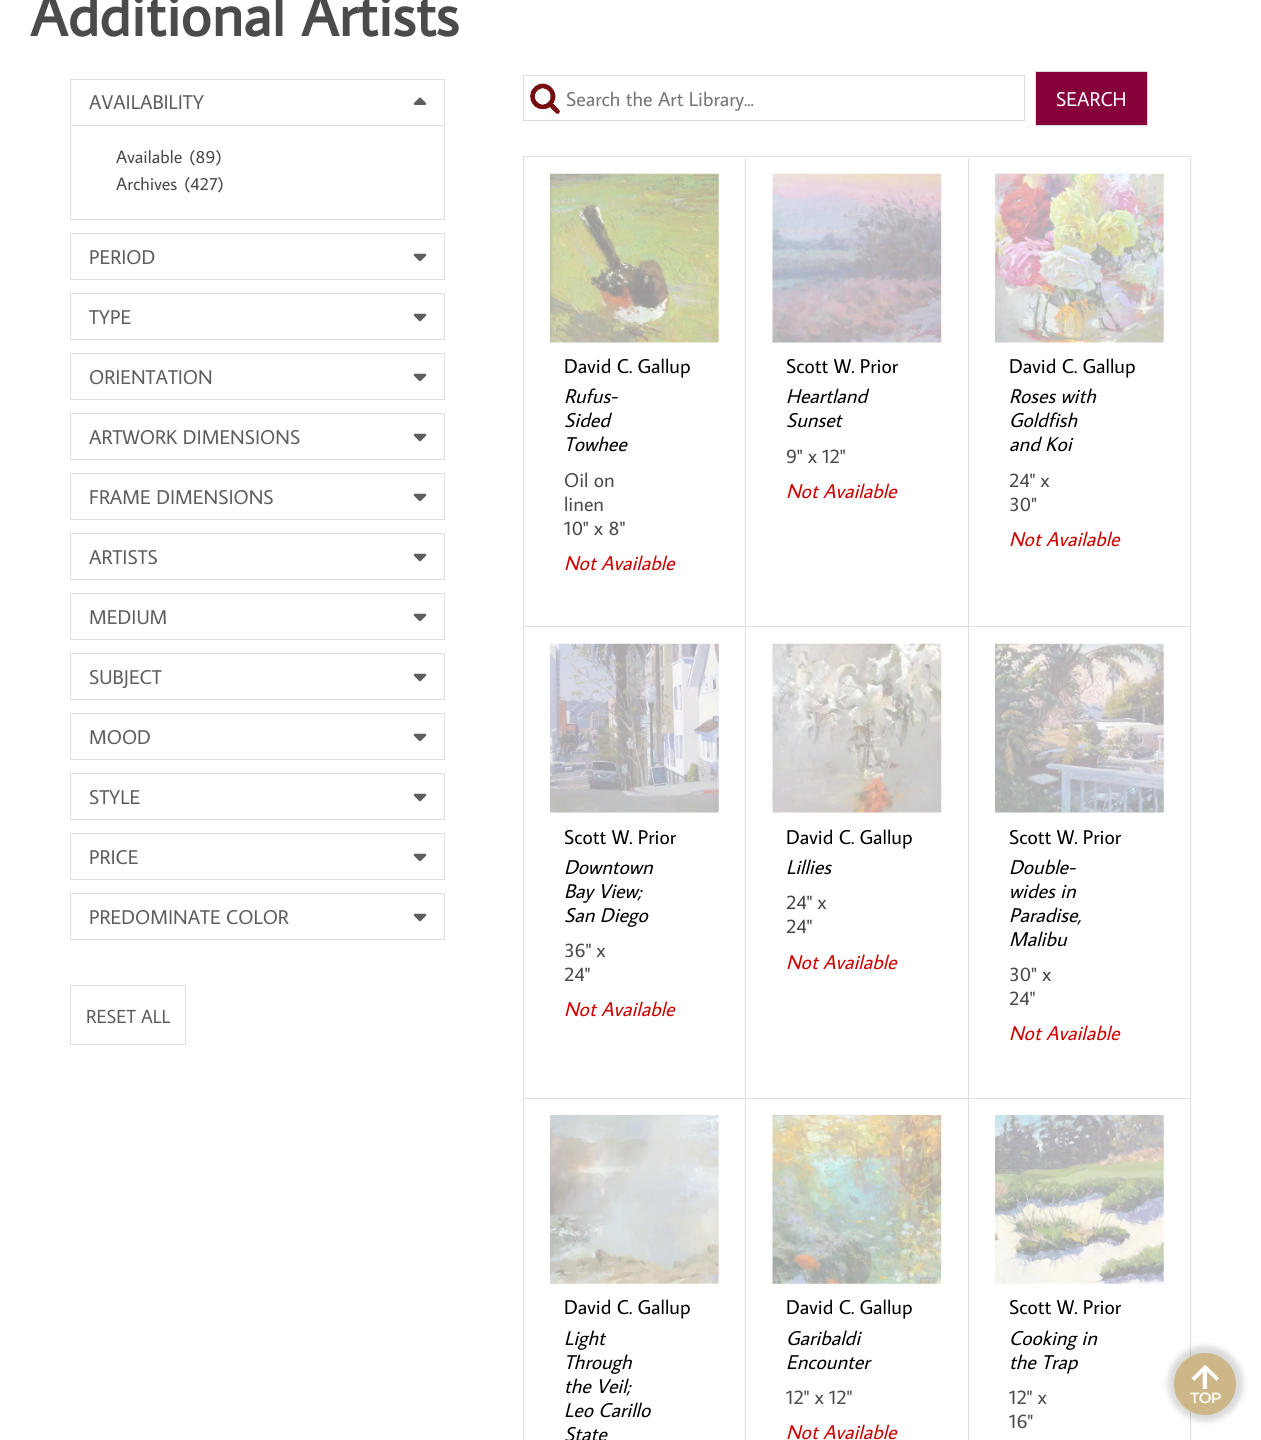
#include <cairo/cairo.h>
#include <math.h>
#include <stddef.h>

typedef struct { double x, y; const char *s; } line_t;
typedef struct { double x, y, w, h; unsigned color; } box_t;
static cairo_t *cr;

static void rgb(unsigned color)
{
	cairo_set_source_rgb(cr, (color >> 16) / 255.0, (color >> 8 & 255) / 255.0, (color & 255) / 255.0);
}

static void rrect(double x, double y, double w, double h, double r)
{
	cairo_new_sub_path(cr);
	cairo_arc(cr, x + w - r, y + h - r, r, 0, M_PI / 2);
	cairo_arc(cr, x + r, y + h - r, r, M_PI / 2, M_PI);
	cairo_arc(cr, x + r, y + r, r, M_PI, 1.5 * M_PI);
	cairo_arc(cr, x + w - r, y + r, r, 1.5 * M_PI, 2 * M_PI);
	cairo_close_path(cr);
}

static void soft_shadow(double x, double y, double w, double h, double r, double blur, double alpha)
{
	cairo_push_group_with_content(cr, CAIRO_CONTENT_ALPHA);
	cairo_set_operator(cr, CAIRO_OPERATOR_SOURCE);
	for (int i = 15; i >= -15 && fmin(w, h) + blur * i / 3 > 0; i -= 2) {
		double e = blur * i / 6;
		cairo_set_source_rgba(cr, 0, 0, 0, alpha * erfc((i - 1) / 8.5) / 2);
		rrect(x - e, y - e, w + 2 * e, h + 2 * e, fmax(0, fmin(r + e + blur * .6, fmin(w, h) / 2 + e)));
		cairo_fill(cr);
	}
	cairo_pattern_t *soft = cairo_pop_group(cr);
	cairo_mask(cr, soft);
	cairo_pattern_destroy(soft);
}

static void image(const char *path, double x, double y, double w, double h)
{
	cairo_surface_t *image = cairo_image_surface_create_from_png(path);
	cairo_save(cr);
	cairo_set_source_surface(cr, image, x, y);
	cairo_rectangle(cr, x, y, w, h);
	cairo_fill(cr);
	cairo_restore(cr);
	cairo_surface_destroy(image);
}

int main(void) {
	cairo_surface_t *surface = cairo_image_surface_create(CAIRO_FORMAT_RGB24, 1261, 1440);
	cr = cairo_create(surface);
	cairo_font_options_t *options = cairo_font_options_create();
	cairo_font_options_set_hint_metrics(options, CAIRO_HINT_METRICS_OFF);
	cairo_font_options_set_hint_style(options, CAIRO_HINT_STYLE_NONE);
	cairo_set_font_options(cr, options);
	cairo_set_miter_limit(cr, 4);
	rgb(0xffffff);
	cairo_paint(cr);
	cairo_rectangle(cr, 70.5, 79.5, 374, 140);
	rgb(0xdfdfdf);
	cairo_set_line_width(cr, 1);
	cairo_stroke(cr);
	image("img/1.png", 413, 97, 14, 8);
	rgb(0xe0e0e0);
	cairo_rectangle(cr, 71, 125, 373, 1);
	cairo_fill(cr);
	cairo_rectangle(cr, 70.5, 233.5, 374, 46);
	rgb(0xdfdfdf);
	cairo_stroke(cr);
	image("img/2.png", 413, 253, 14, 9);
	cairo_rectangle(cr, 70.5, 293.5, 374, 46);
	cairo_stroke(cr);
	image("img/2.png", 413, 313, 14, 9);
	cairo_rectangle(cr, 70.5, 353.5, 374, 46);
	cairo_stroke(cr);
	image("img/2.png", 413, 373, 14, 9);
	cairo_rectangle(cr, 70.5, 413.5, 374, 46);
	cairo_stroke(cr);
	image("img/2.png", 413, 433, 14, 9);
	cairo_rectangle(cr, 70.5, 473.5, 374, 46);
	cairo_stroke(cr);
	image("img/2.png", 413, 493, 14, 9);
	cairo_rectangle(cr, 70.5, 533.5, 374, 46);
	cairo_stroke(cr);
	image("img/2.png", 413, 553, 14, 9);
	cairo_rectangle(cr, 70.5, 593.5, 374, 46);
	cairo_stroke(cr);
	image("img/2.png", 413, 613, 14, 9);
	cairo_rectangle(cr, 70.5, 653.5, 374, 46);
	cairo_stroke(cr);
	image("img/2.png", 413, 673, 14, 9);
	cairo_rectangle(cr, 70.5, 713.5, 374, 46);
	cairo_stroke(cr);
	image("img/2.png", 413, 733, 14, 9);
	cairo_rectangle(cr, 70.5, 773.5, 374, 46);
	cairo_stroke(cr);
	image("img/2.png", 413, 793, 14, 9);
	cairo_rectangle(cr, 70.5, 833.5, 374, 46);
	cairo_stroke(cr);
	image("img/2.png", 413, 853, 14, 9);
	cairo_rectangle(cr, 70.5, 893.5, 374, 46);
	cairo_stroke(cr);
	image("img/2.png", 413, 913, 14, 9);
	cairo_rectangle(cr, 70.5, 985.5, 115, 59);
	rgb(0xdedede);
	cairo_stroke(cr);
	image("img/3.png", 530, 83, 30, 31);
	cairo_rectangle(cr, 523.5, 75.5, 501, 45);
	cairo_stroke(cr);
	rgb(0x860039);
	cairo_rectangle(cr, 1035.5, 71.5, 112, 54);
	cairo_fill_preserve(cr);
	rgb(0xdedede);
	cairo_stroke(cr);
	{
		static const box_t items[] = {
			{523, 156, 668, 1, 0xe0e0e0},
			{523, 156, 1, 1284, 0xe0e0e0},
			{745, 158, 1, 1282, 0xe0e0e0},
			{524, 626, 222, 1, 0xe0e0e0},
		};
		for (size_t i = 0; i < sizeof items / sizeof *items; i++) {
			rgb(items[i].color);
			cairo_rectangle(cr, items[i].x, items[i].y, items[i].w, items[i].h);
			cairo_fill(cr);
		}
	}
	image("img/4.png", 550, 173, 169, 170);
	cairo_rectangle(cr, 968, 158, 1, 1282);
	cairo_fill(cr);
	cairo_rectangle(cr, 746, 626, 223, 1);
	cairo_fill(cr);
	image("img/5.png", 772, 173, 170, 170);
	cairo_rectangle(cr, 1190, 158, 1, 1282);
	cairo_fill(cr);
	cairo_rectangle(cr, 969, 626, 222, 1);
	cairo_fill(cr);
	image("img/6.png", 995, 173, 169, 170);
	cairo_rectangle(cr, 524, 1098, 667, 1);
	cairo_fill(cr);
	image("img/7.png", 550, 643, 169, 170);
	image("img/8.png", 772, 643, 170, 170);
	image("img/9.png", 995, 643, 169, 170);
	image("img/10.png", 550, 1115, 169, 169);
	image("img/11.png", 772, 1115, 170, 169);
	image("img/12.png", 995, 1115, 169, 169);
	rgb(0x000000);
	soft_shadow(1168, 1346, 75, 75, 37.5, 3, 0.15);
	rgb(0xcdb788);
	cairo_arc(cr, 1205, 1384, 31, 0, 2 * M_PI);
	cairo_fill(cr);
	image("img/13.png", 1190, 1365, 32, 39);
	cairo_select_font_face(cr, "Average Sans", CAIRO_FONT_SLANT_NORMAL, CAIRO_FONT_WEIGHT_BOLD);
	cairo_set_font_size(cr, 60);
	rgb(0x4b4b4b);
	cairo_move_to(cr, 30, 36);
	cairo_show_text(cr, "Additional Artists");
	cairo_select_font_face(cr, "Average Sans", CAIRO_FONT_SLANT_NORMAL, CAIRO_FONT_WEIGHT_NORMAL);
	cairo_set_font_size(cr, 20);
	rgb(0x5e5e5e);
	cairo_move_to(cr, 89, 109);
	cairo_show_text(cr, "AVAILABILITY");
	cairo_set_font_size(cr, 18);
	rgb(0x4b4b4b);
	{
		static const line_t items[] = {
			{116, 163, "Available"},
			{189, 163, "(89)"},
			{116, 190, "Archives"},
			{184, 190, "(427)"},
		};
		for (size_t i = 0; i < sizeof items / sizeof *items; i++) {
			cairo_move_to(cr, items[i].x, items[i].y);
			cairo_show_text(cr, items[i].s);
		}
	}
	cairo_set_font_size(cr, 20);
	rgb(0x5e5e5e);
	{
		static const line_t items[] = {
			{89, 264, "PERIOD"},
			{89, 324, "TYPE"},
			{89, 384, "ORIENTATION"},
			{89, 444, "ARTWORK DIMENSIONS"},
			{89, 504, "FRAME DIMENSIONS"},
			{89, 564, "ARTISTS"},
			{89, 624, "MEDIUM"},
			{89, 684, "SUBJECT"},
			{89, 744, "MOOD"},
			{89, 804, "STYLE"},
			{89, 864, "PRICE"},
			{89, 924, "PREDOMINATE COLOR"},
		};
		for (size_t i = 0; i < sizeof items / sizeof *items; i++) {
			cairo_move_to(cr, items[i].x, items[i].y);
			cairo_show_text(cr, items[i].s);
		}
	}
	cairo_set_font_size(cr, 19);
	cairo_move_to(cr, 86, 1023);
	cairo_show_text(cr, "RESET ALL");
	cairo_set_font_size(cr, 20);
	rgb(0x757575);
	cairo_move_to(cr, 566, 106);
	cairo_show_text(cr, "Search the Art Library...");
	rgb(0xffffff);
	cairo_move_to(cr, 1056, 106);
	cairo_show_text(cr, "SEARCH");
	rgb(0x000000);
	cairo_move_to(cr, 564, 373);
	cairo_show_text(cr, "David C. Gallup");
	cairo_select_font_face(cr, "Average Sans", CAIRO_FONT_SLANT_ITALIC, CAIRO_FONT_WEIGHT_NORMAL);
	{
		static const line_t items[] = {
			{564, 403, "Rufus-"},
			{564, 427, "Sided"},
			{564, 451, "Towhee"},
		};
		for (size_t i = 0; i < sizeof items / sizeof *items; i++) {
			cairo_move_to(cr, items[i].x, items[i].y);
			cairo_show_text(cr, items[i].s);
		}
	}
	cairo_select_font_face(cr, "Average Sans", CAIRO_FONT_SLANT_NORMAL, CAIRO_FONT_WEIGHT_NORMAL);
	rgb(0x4b4b4b);
	{
		static const line_t items[] = {
			{564, 487, "Oil on"},
			{564, 511, "linen"},
			{564, 535, "10\" x 8\""},
		};
		for (size_t i = 0; i < sizeof items / sizeof *items; i++) {
			cairo_move_to(cr, items[i].x, items[i].y);
			cairo_show_text(cr, items[i].s);
		}
	}
	cairo_select_font_face(cr, "Average Sans", CAIRO_FONT_SLANT_ITALIC, CAIRO_FONT_WEIGHT_NORMAL);
	rgb(0xcf0000);
	cairo_move_to(cr, 564, 570);
	cairo_show_text(cr, "Not Available");
	cairo_select_font_face(cr, "Average Sans", CAIRO_FONT_SLANT_NORMAL, CAIRO_FONT_WEIGHT_NORMAL);
	rgb(0x000000);
	cairo_move_to(cr, 786, 373);
	cairo_show_text(cr, "Scott W. Prior");
	cairo_select_font_face(cr, "Average Sans", CAIRO_FONT_SLANT_ITALIC, CAIRO_FONT_WEIGHT_NORMAL);
	cairo_move_to(cr, 786, 403);
	cairo_show_text(cr, "Heartland");
	cairo_move_to(cr, 786, 427);
	cairo_show_text(cr, "Sunset");
	cairo_select_font_face(cr, "Average Sans", CAIRO_FONT_SLANT_NORMAL, CAIRO_FONT_WEIGHT_NORMAL);
	rgb(0x4b4b4b);
	cairo_move_to(cr, 786, 463);
	cairo_show_text(cr, "9\" x 12\"");
	cairo_select_font_face(cr, "Average Sans", CAIRO_FONT_SLANT_ITALIC, CAIRO_FONT_WEIGHT_NORMAL);
	rgb(0xcf0000);
	cairo_move_to(cr, 786, 498);
	cairo_show_text(cr, "Not Available");
	cairo_select_font_face(cr, "Average Sans", CAIRO_FONT_SLANT_NORMAL, CAIRO_FONT_WEIGHT_NORMAL);
	rgb(0x000000);
	cairo_move_to(cr, 1009, 373);
	cairo_show_text(cr, "David C. Gallup");
	cairo_select_font_face(cr, "Average Sans", CAIRO_FONT_SLANT_ITALIC, CAIRO_FONT_WEIGHT_NORMAL);
	{
		static const line_t items[] = {
			{1009, 403, "Roses with"},
			{1009, 427, "Goldfish"},
			{1009, 451, "and Koi"},
		};
		for (size_t i = 0; i < sizeof items / sizeof *items; i++) {
			cairo_move_to(cr, items[i].x, items[i].y);
			cairo_show_text(cr, items[i].s);
		}
	}
	cairo_select_font_face(cr, "Average Sans", CAIRO_FONT_SLANT_NORMAL, CAIRO_FONT_WEIGHT_NORMAL);
	rgb(0x4b4b4b);
	cairo_move_to(cr, 1009, 487);
	cairo_show_text(cr, "24\" x");
	cairo_move_to(cr, 1009, 511);
	cairo_show_text(cr, "30\"");
	cairo_select_font_face(cr, "Average Sans", CAIRO_FONT_SLANT_ITALIC, CAIRO_FONT_WEIGHT_NORMAL);
	rgb(0xcf0000);
	cairo_move_to(cr, 1009, 546);
	cairo_show_text(cr, "Not Available");
	cairo_select_font_face(cr, "Average Sans", CAIRO_FONT_SLANT_NORMAL, CAIRO_FONT_WEIGHT_NORMAL);
	rgb(0x000000);
	cairo_move_to(cr, 564, 844);
	cairo_show_text(cr, "Scott W. Prior");
	cairo_select_font_face(cr, "Average Sans", CAIRO_FONT_SLANT_ITALIC, CAIRO_FONT_WEIGHT_NORMAL);
	{
		static const line_t items[] = {
			{564, 874, "Downtown"},
			{564, 898, "Bay View;"},
			{564, 922, "San Diego"},
		};
		for (size_t i = 0; i < sizeof items / sizeof *items; i++) {
			cairo_move_to(cr, items[i].x, items[i].y);
			cairo_show_text(cr, items[i].s);
		}
	}
	cairo_select_font_face(cr, "Average Sans", CAIRO_FONT_SLANT_NORMAL, CAIRO_FONT_WEIGHT_NORMAL);
	rgb(0x4b4b4b);
	cairo_move_to(cr, 564, 957);
	cairo_show_text(cr, "36\" x");
	cairo_move_to(cr, 564, 981);
	cairo_show_text(cr, "24\"");
	cairo_select_font_face(cr, "Average Sans", CAIRO_FONT_SLANT_ITALIC, CAIRO_FONT_WEIGHT_NORMAL);
	rgb(0xcf0000);
	cairo_move_to(cr, 564, 1016);
	cairo_show_text(cr, "Not Available");
	cairo_select_font_face(cr, "Average Sans", CAIRO_FONT_SLANT_NORMAL, CAIRO_FONT_WEIGHT_NORMAL);
	rgb(0x000000);
	cairo_move_to(cr, 786, 844);
	cairo_show_text(cr, "David C. Gallup");
	cairo_select_font_face(cr, "Average Sans", CAIRO_FONT_SLANT_ITALIC, CAIRO_FONT_WEIGHT_NORMAL);
	cairo_move_to(cr, 786, 874);
	cairo_show_text(cr, "Lillies");
	cairo_select_font_face(cr, "Average Sans", CAIRO_FONT_SLANT_NORMAL, CAIRO_FONT_WEIGHT_NORMAL);
	rgb(0x4b4b4b);
	cairo_move_to(cr, 786, 909);
	cairo_show_text(cr, "24\" x");
	cairo_move_to(cr, 786, 933);
	cairo_show_text(cr, "24\"");
	cairo_select_font_face(cr, "Average Sans", CAIRO_FONT_SLANT_ITALIC, CAIRO_FONT_WEIGHT_NORMAL);
	rgb(0xcf0000);
	cairo_move_to(cr, 786, 969);
	cairo_show_text(cr, "Not Available");
	cairo_select_font_face(cr, "Average Sans", CAIRO_FONT_SLANT_NORMAL, CAIRO_FONT_WEIGHT_NORMAL);
	rgb(0x000000);
	cairo_move_to(cr, 1009, 844);
	cairo_show_text(cr, "Scott W. Prior");
	cairo_select_font_face(cr, "Average Sans", CAIRO_FONT_SLANT_ITALIC, CAIRO_FONT_WEIGHT_NORMAL);
	{
		static const line_t items[] = {
			{1009, 874, "Double-"},
			{1009, 898, "wides in"},
			{1009, 922, "Paradise,"},
			{1009, 946, "Malibu"},
		};
		for (size_t i = 0; i < sizeof items / sizeof *items; i++) {
			cairo_move_to(cr, items[i].x, items[i].y);
			cairo_show_text(cr, items[i].s);
		}
	}
	cairo_select_font_face(cr, "Average Sans", CAIRO_FONT_SLANT_NORMAL, CAIRO_FONT_WEIGHT_NORMAL);
	rgb(0x4b4b4b);
	cairo_move_to(cr, 1009, 981);
	cairo_show_text(cr, "30\" x");
	cairo_move_to(cr, 1009, 1005);
	cairo_show_text(cr, "24\"");
	cairo_select_font_face(cr, "Average Sans", CAIRO_FONT_SLANT_ITALIC, CAIRO_FONT_WEIGHT_NORMAL);
	rgb(0xcf0000);
	cairo_move_to(cr, 1009, 1040);
	cairo_show_text(cr, "Not Available");
	cairo_select_font_face(cr, "Average Sans", CAIRO_FONT_SLANT_NORMAL, CAIRO_FONT_WEIGHT_NORMAL);
	rgb(0x000000);
	cairo_move_to(cr, 564, 1314);
	cairo_show_text(cr, "David C. Gallup");
	cairo_select_font_face(cr, "Average Sans", CAIRO_FONT_SLANT_ITALIC, CAIRO_FONT_WEIGHT_NORMAL);
	{
		static const line_t items[] = {
			{564, 1345, "Light"},
			{564, 1369, "Through"},
			{564, 1393, "the Veil;"},
			{564, 1417, "Leo Carillo"},
			{564, 1441, "State"},
		};
		for (size_t i = 0; i < sizeof items / sizeof *items; i++) {
			cairo_move_to(cr, items[i].x, items[i].y);
			cairo_show_text(cr, items[i].s);
		}
	}
	cairo_select_font_face(cr, "Average Sans", CAIRO_FONT_SLANT_NORMAL, CAIRO_FONT_WEIGHT_NORMAL);
	cairo_move_to(cr, 786, 1314);
	cairo_show_text(cr, "David C. Gallup");
	cairo_select_font_face(cr, "Average Sans", CAIRO_FONT_SLANT_ITALIC, CAIRO_FONT_WEIGHT_NORMAL);
	cairo_move_to(cr, 786, 1345);
	cairo_show_text(cr, "Garibaldi");
	cairo_move_to(cr, 786, 1369);
	cairo_show_text(cr, "Encounter");
	cairo_select_font_face(cr, "Average Sans", CAIRO_FONT_SLANT_NORMAL, CAIRO_FONT_WEIGHT_NORMAL);
	rgb(0x4b4b4b);
	cairo_move_to(cr, 786, 1404);
	cairo_show_text(cr, "12\" x 12\"");
	cairo_select_font_face(cr, "Average Sans", CAIRO_FONT_SLANT_ITALIC, CAIRO_FONT_WEIGHT_NORMAL);
	rgb(0xcf0000);
	cairo_move_to(cr, 786, 1439);
	cairo_show_text(cr, "Not Available");
	cairo_select_font_face(cr, "Average Sans", CAIRO_FONT_SLANT_NORMAL, CAIRO_FONT_WEIGHT_NORMAL);
	rgb(0x000000);
	cairo_move_to(cr, 1009, 1314);
	cairo_show_text(cr, "Scott W. Prior");
	cairo_select_font_face(cr, "Average Sans", CAIRO_FONT_SLANT_ITALIC, CAIRO_FONT_WEIGHT_NORMAL);
	cairo_move_to(cr, 1009, 1345);
	cairo_show_text(cr, "Cooking in");
	cairo_move_to(cr, 1009, 1369);
	cairo_show_text(cr, "the Trap");
	cairo_select_font_face(cr, "Average Sans", CAIRO_FONT_SLANT_NORMAL, CAIRO_FONT_WEIGHT_NORMAL);
	rgb(0x4b4b4b);
	cairo_move_to(cr, 1009, 1404);
	cairo_show_text(cr, "12\" x");
	cairo_move_to(cr, 1009, 1428);
	cairo_show_text(cr, "16\"");
	cairo_surface_write_to_png(surface, "page.png");
	cairo_font_options_destroy(options);
	cairo_destroy(cr);
	cairo_surface_destroy(surface);
	return 0;
}
